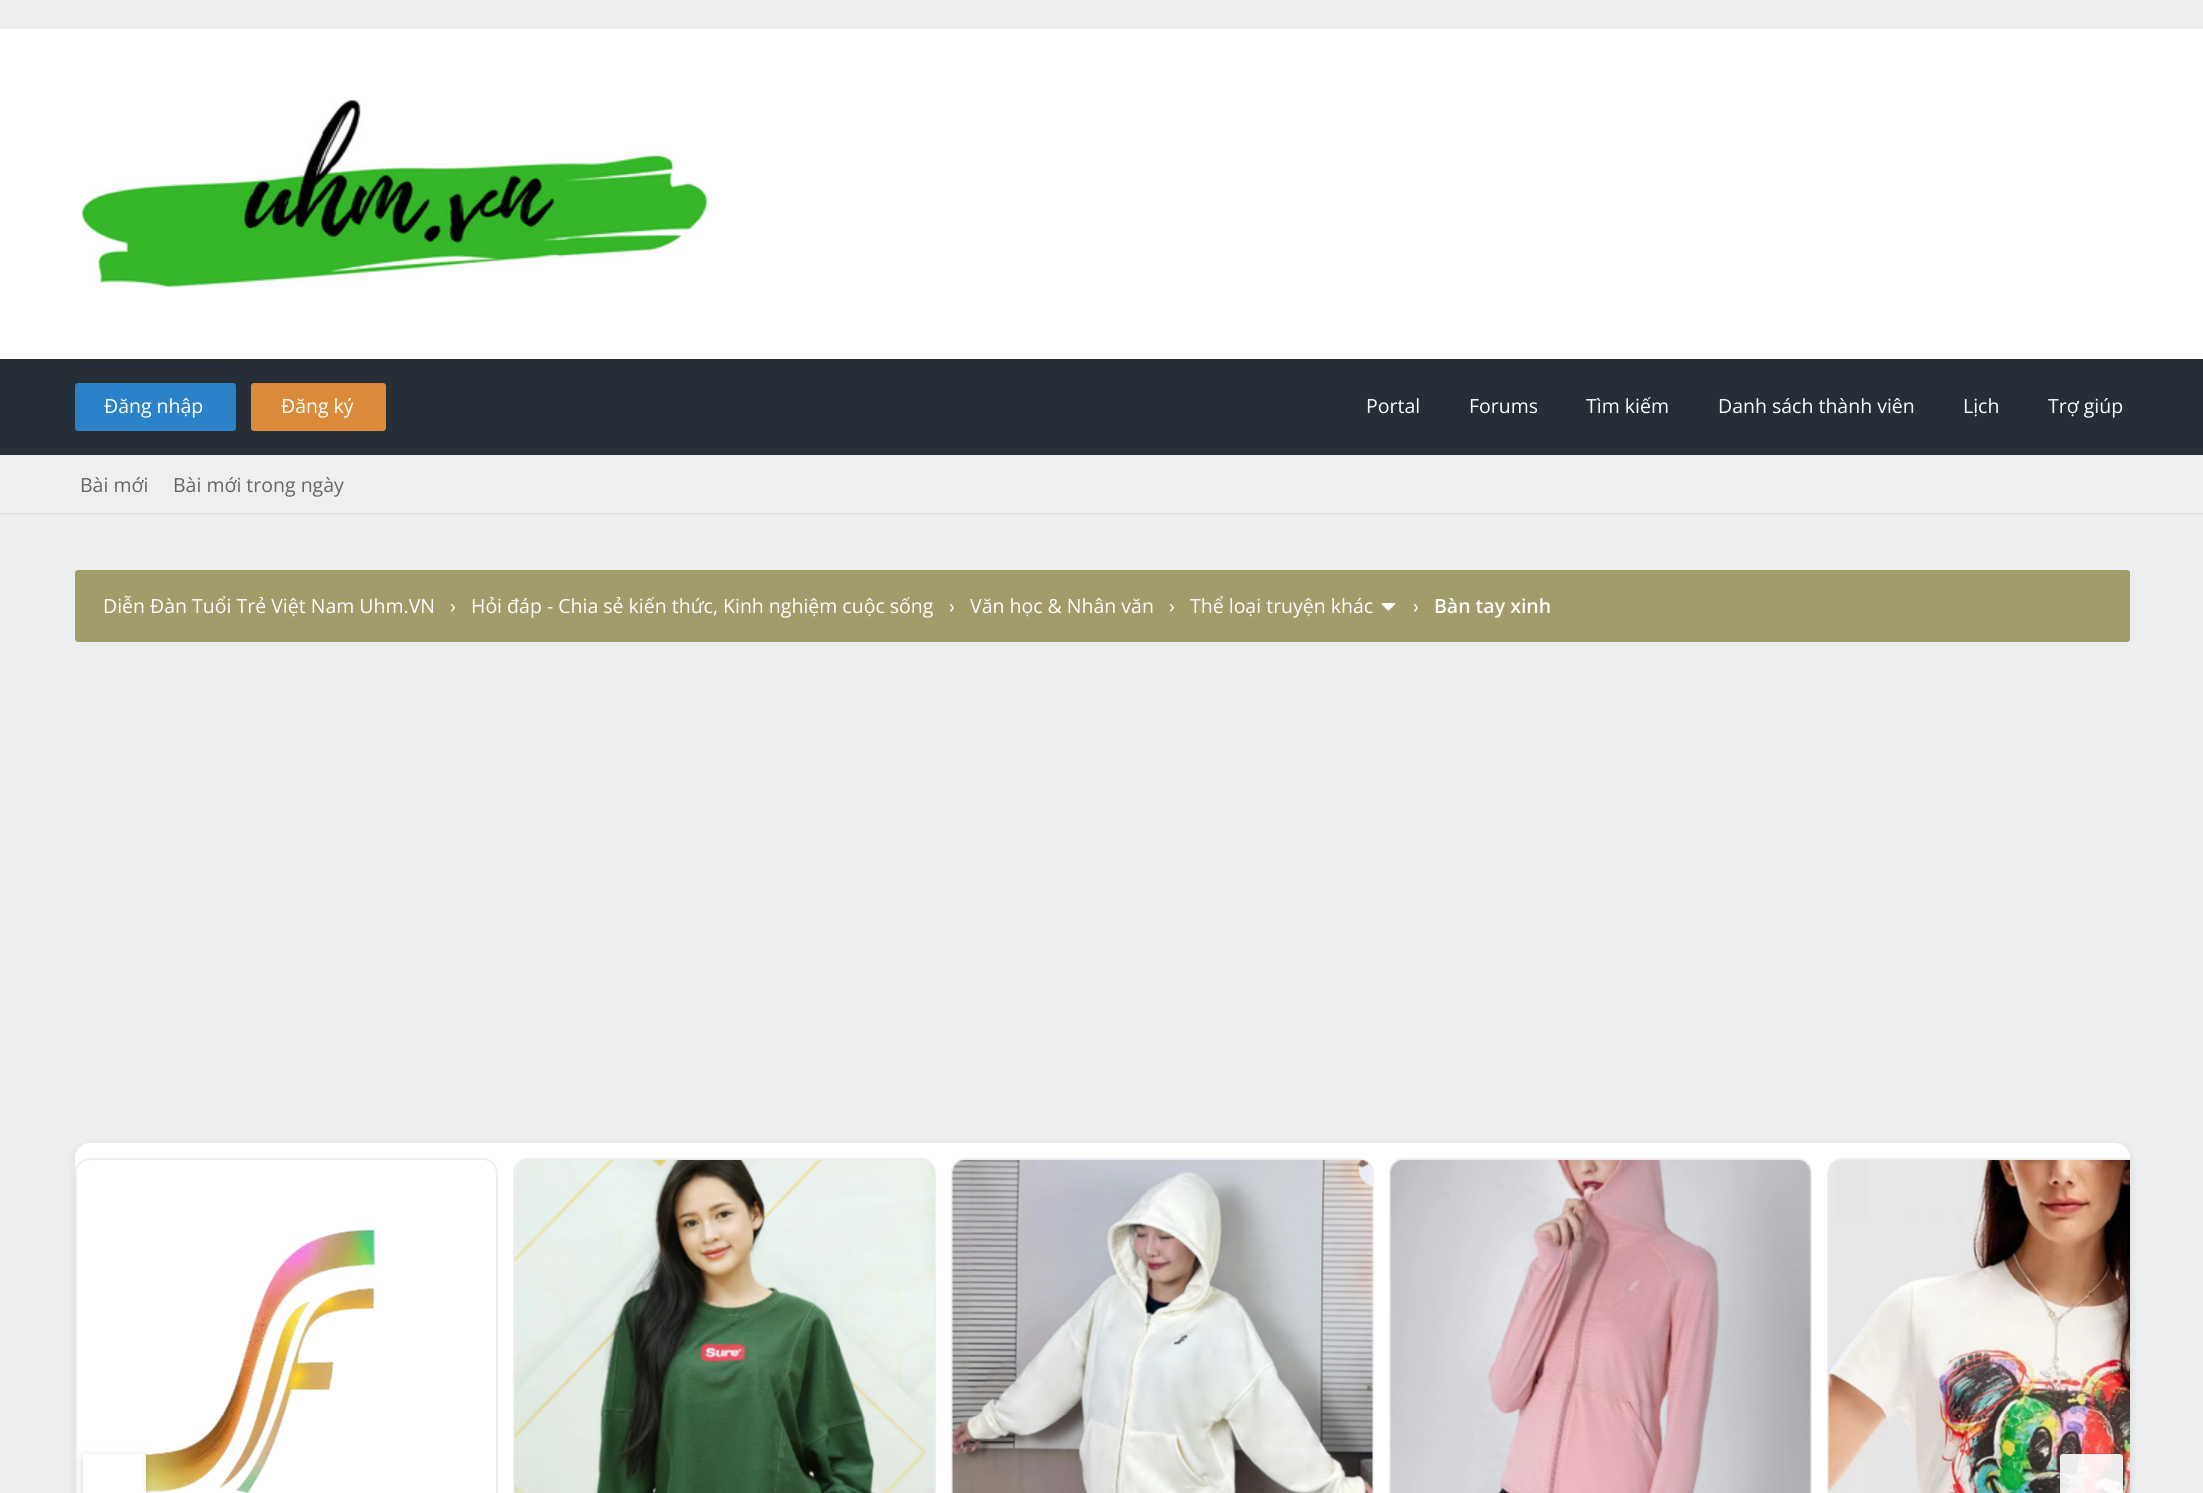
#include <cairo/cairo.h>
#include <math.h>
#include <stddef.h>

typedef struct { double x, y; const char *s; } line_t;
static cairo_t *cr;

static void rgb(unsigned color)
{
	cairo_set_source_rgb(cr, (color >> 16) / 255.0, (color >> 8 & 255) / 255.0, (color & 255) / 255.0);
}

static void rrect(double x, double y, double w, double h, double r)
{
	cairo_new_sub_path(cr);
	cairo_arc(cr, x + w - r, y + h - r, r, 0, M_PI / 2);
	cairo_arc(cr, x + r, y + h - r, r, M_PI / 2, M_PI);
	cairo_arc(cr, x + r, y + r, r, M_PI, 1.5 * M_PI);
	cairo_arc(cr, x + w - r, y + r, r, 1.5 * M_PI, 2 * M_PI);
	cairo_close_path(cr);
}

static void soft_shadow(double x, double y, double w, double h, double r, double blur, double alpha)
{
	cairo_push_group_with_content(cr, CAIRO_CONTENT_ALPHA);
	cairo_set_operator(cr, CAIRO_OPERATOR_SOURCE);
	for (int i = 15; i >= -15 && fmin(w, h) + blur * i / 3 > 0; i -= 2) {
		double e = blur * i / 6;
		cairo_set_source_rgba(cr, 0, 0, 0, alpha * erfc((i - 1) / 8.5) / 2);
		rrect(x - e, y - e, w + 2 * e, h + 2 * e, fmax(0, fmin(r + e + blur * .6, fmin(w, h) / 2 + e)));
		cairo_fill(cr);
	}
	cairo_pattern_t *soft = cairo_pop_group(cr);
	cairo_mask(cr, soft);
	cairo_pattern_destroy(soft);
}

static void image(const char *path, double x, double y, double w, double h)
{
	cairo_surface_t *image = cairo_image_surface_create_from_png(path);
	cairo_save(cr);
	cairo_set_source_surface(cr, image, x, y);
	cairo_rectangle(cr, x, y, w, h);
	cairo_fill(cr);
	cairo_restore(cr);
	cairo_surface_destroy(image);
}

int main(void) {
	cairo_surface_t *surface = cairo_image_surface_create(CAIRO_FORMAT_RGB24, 2203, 1493);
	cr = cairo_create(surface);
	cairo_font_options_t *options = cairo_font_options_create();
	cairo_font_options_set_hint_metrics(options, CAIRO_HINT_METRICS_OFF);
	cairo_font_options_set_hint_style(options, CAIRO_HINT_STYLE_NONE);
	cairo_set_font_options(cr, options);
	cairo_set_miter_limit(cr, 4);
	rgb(0xeceef0);
	cairo_paint(cr);
	rgb(0xffffff);
	cairo_rectangle(cr, 0, 29, 2203, 330);
	cairo_fill(cr);
	image("img/1.png", 81, 99, 627, 189);
	rgb(0x262e38);
	cairo_rectangle(cr, 0, 359, 2203, 96);
	cairo_fill(cr);
	rgb(0x2c82c9);
	rrect(75, 383, 161, 48, 3);
	cairo_fill(cr);
	rgb(0xd98b3a);
	rrect(251, 383, 135, 48, 3);
	cairo_fill(cr);
	rgb(0xefefef);
	cairo_rectangle(cr, 0, 455, 2203, 58);
	cairo_fill(cr);
	rgb(0xe3e3e3);
	cairo_rectangle(cr, 0, 513, 2203, 2);
	cairo_fill(cr);
	rgb(0xa19c69);
	rrect(75, 570, 2055, 72, 3);
	cairo_fill(cr);
	image("img/2.png", 1381, 603, 15, 8);
	rgb(0x000000);
	soft_shadow(75, 1146, 2055, 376, 15, 4.5, 0.1);
	rgb(0xffffff);
	rrect(75, 1143, 2055, 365, 15);
	cairo_fill(cr);
	rrect(76, 1159, 421, 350, 14);
	rgb(0xeeeeee);
	cairo_stroke(cr);
	image("img/3.png", 141, 1229, 234, 264);
	rrect(514, 1159, 421, 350, 14);
	cairo_stroke(cr);
	image("img/4.png", 514, 1160, 421, 333);
	rrect(952, 1159, 421, 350, 14);
	cairo_stroke(cr);
	image("img/5.png", 952, 1160, 421, 333);
	rrect(1390, 1159, 421, 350, 14);
	cairo_stroke(cr);
	image("img/6.png", 1390, 1160, 421, 333);
	cairo_new_path(cr);
	cairo_move_to(cr, 1842, 1158);
	cairo_curve_to(cr, 1834, 1158, 1827, 1165, 1827, 1173);
	cairo_line_to(cr, 1827, 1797);
	cairo_curve_to(cr, 1827, 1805, 1834, 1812, 1842, 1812);
	cairo_line_to(cr, 2130, 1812);
	cairo_line_to(cr, 2130, 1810);
	cairo_line_to(cr, 1842, 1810);
	cairo_curve_to(cr, 1835, 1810, 1829, 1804, 1829, 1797);
	cairo_line_to(cr, 1829, 1173);
	cairo_curve_to(cr, 1829, 1166, 1835, 1160, 1842, 1160);
	cairo_line_to(cr, 2130, 1160);
	cairo_line_to(cr, 2130, 1158);
	cairo_close_path(cr);
	cairo_fill(cr);
	image("img/7.png", 1828, 1160, 302, 333);
	cairo_save(cr);
	cairo_set_fill_rule(cr, CAIRO_FILL_RULE_EVEN_ODD);
	cairo_new_path(cr);
	cairo_move_to(cr, 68, 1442);
	cairo_line_to(cr, 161, 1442);
	cairo_line_to(cr, 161, 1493);
	cairo_line_to(cr, 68, 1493);
	cairo_close_path(cr);
	cairo_move_to(cr, 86, 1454);
	cairo_line_to(cr, 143, 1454);
	cairo_curve_to(cr, 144.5, 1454, 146, 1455.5, 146, 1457);
	cairo_line_to(cr, 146, 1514);
	cairo_curve_to(cr, 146, 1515.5, 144.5, 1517, 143, 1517);
	cairo_line_to(cr, 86, 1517);
	cairo_curve_to(cr, 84.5, 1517, 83, 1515.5, 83, 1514);
	cairo_line_to(cr, 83, 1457);
	cairo_curve_to(cr, 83, 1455.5, 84.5, 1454, 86, 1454);
	cairo_close_path(cr);
	cairo_clip(cr);
	rgb(0x000000);
	soft_shadow(83, 1457, 63, 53, 3, 4.5, 0.2);
	cairo_restore(cr);
	cairo_set_source_rgba(cr, 1, 1, 1, 0.9);
	rrect(83, 1454, 63, 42, 3);
	cairo_fill(cr);
	cairo_save(cr);
	cairo_set_fill_rule(cr, CAIRO_FILL_RULE_EVEN_ODD);
	cairo_new_path(cr);
	cairo_move_to(cr, 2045, 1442);
	cairo_line_to(cr, 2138, 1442);
	cairo_line_to(cr, 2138, 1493);
	cairo_line_to(cr, 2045, 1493);
	cairo_close_path(cr);
	cairo_move_to(cr, 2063, 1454);
	cairo_line_to(cr, 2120, 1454);
	cairo_curve_to(cr, 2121.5, 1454, 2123, 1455.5, 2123, 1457);
	cairo_line_to(cr, 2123, 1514);
	cairo_curve_to(cr, 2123, 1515.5, 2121.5, 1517, 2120, 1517);
	cairo_line_to(cr, 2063, 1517);
	cairo_curve_to(cr, 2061.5, 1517, 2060, 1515.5, 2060, 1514);
	cairo_line_to(cr, 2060, 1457);
	cairo_curve_to(cr, 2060, 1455.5, 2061.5, 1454, 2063, 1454);
	cairo_close_path(cr);
	cairo_clip(cr);
	rgb(0x000000);
	soft_shadow(2060, 1457, 63, 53, 3, 4.5, 0.2);
	cairo_restore(cr);
	rrect(2060, 1454, 63, 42, 3);
	cairo_fill(cr);
	cairo_select_font_face(cr, "Open Sans", CAIRO_FONT_SLANT_NORMAL, CAIRO_FONT_WEIGHT_NORMAL);
	cairo_set_font_size(cr, 19.5);
	rgb(0xffffff);
	{
		static const line_t items[] = {
			{104, 413, "Đăng nhập"},
			{281, 413, "Đăng ký"},
			{1366, 413, "Portal"},
			{1469, 413, "Forums"},
			{1586, 413, "Tìm kiếm"},
			{1718, 413, "Danh sách thành viên"},
			{1963, 413, "Lịch"},
			{2048, 413, "Trợ giúp"},
		};
		for (size_t i = 0; i < sizeof items / sizeof *items; i++) {
			cairo_move_to(cr, items[i].x, items[i].y);
			cairo_show_text(cr, items[i].s);
		}
	}
	rgb(0x666666);
	cairo_move_to(cr, 80, 492);
	cairo_show_text(cr, "Bài mới");
	cairo_move_to(cr, 173, 492);
	cairo_show_text(cr, "Bài mới trong ngày");
	rgb(0xffffff);
	{
		static const line_t items[] = {
			{103, 613, "Diễn Đàn Tuổi Trẻ Việt Nam Uhm.VN"},
			{450, 613, "›"},
			{471, 613, "Hỏi đáp - Chia sẻ kiến thức, Kinh nghiệm cuộc sống"},
			{949, 613, "›"},
			{970, 613, "Văn học & Nhân văn"},
			{1169, 613, "›"},
			{1190, 613, "Thể loại truyện khác"},
			{1413, 613, "›"},
		};
		for (size_t i = 0; i < sizeof items / sizeof *items; i++) {
			cairo_move_to(cr, items[i].x, items[i].y);
			cairo_show_text(cr, items[i].s);
		}
	}
	cairo_select_font_face(cr, "Open Sans SemiBold", CAIRO_FONT_SLANT_NORMAL, CAIRO_FONT_WEIGHT_NORMAL);
	cairo_move_to(cr, 1434, 613);
	cairo_show_text(cr, "Bàn tay xinh");
	cairo_surface_write_to_png(surface, "page.png");
	cairo_font_options_destroy(options);
	cairo_destroy(cr);
	cairo_surface_destroy(surface);
	return 0;
}
